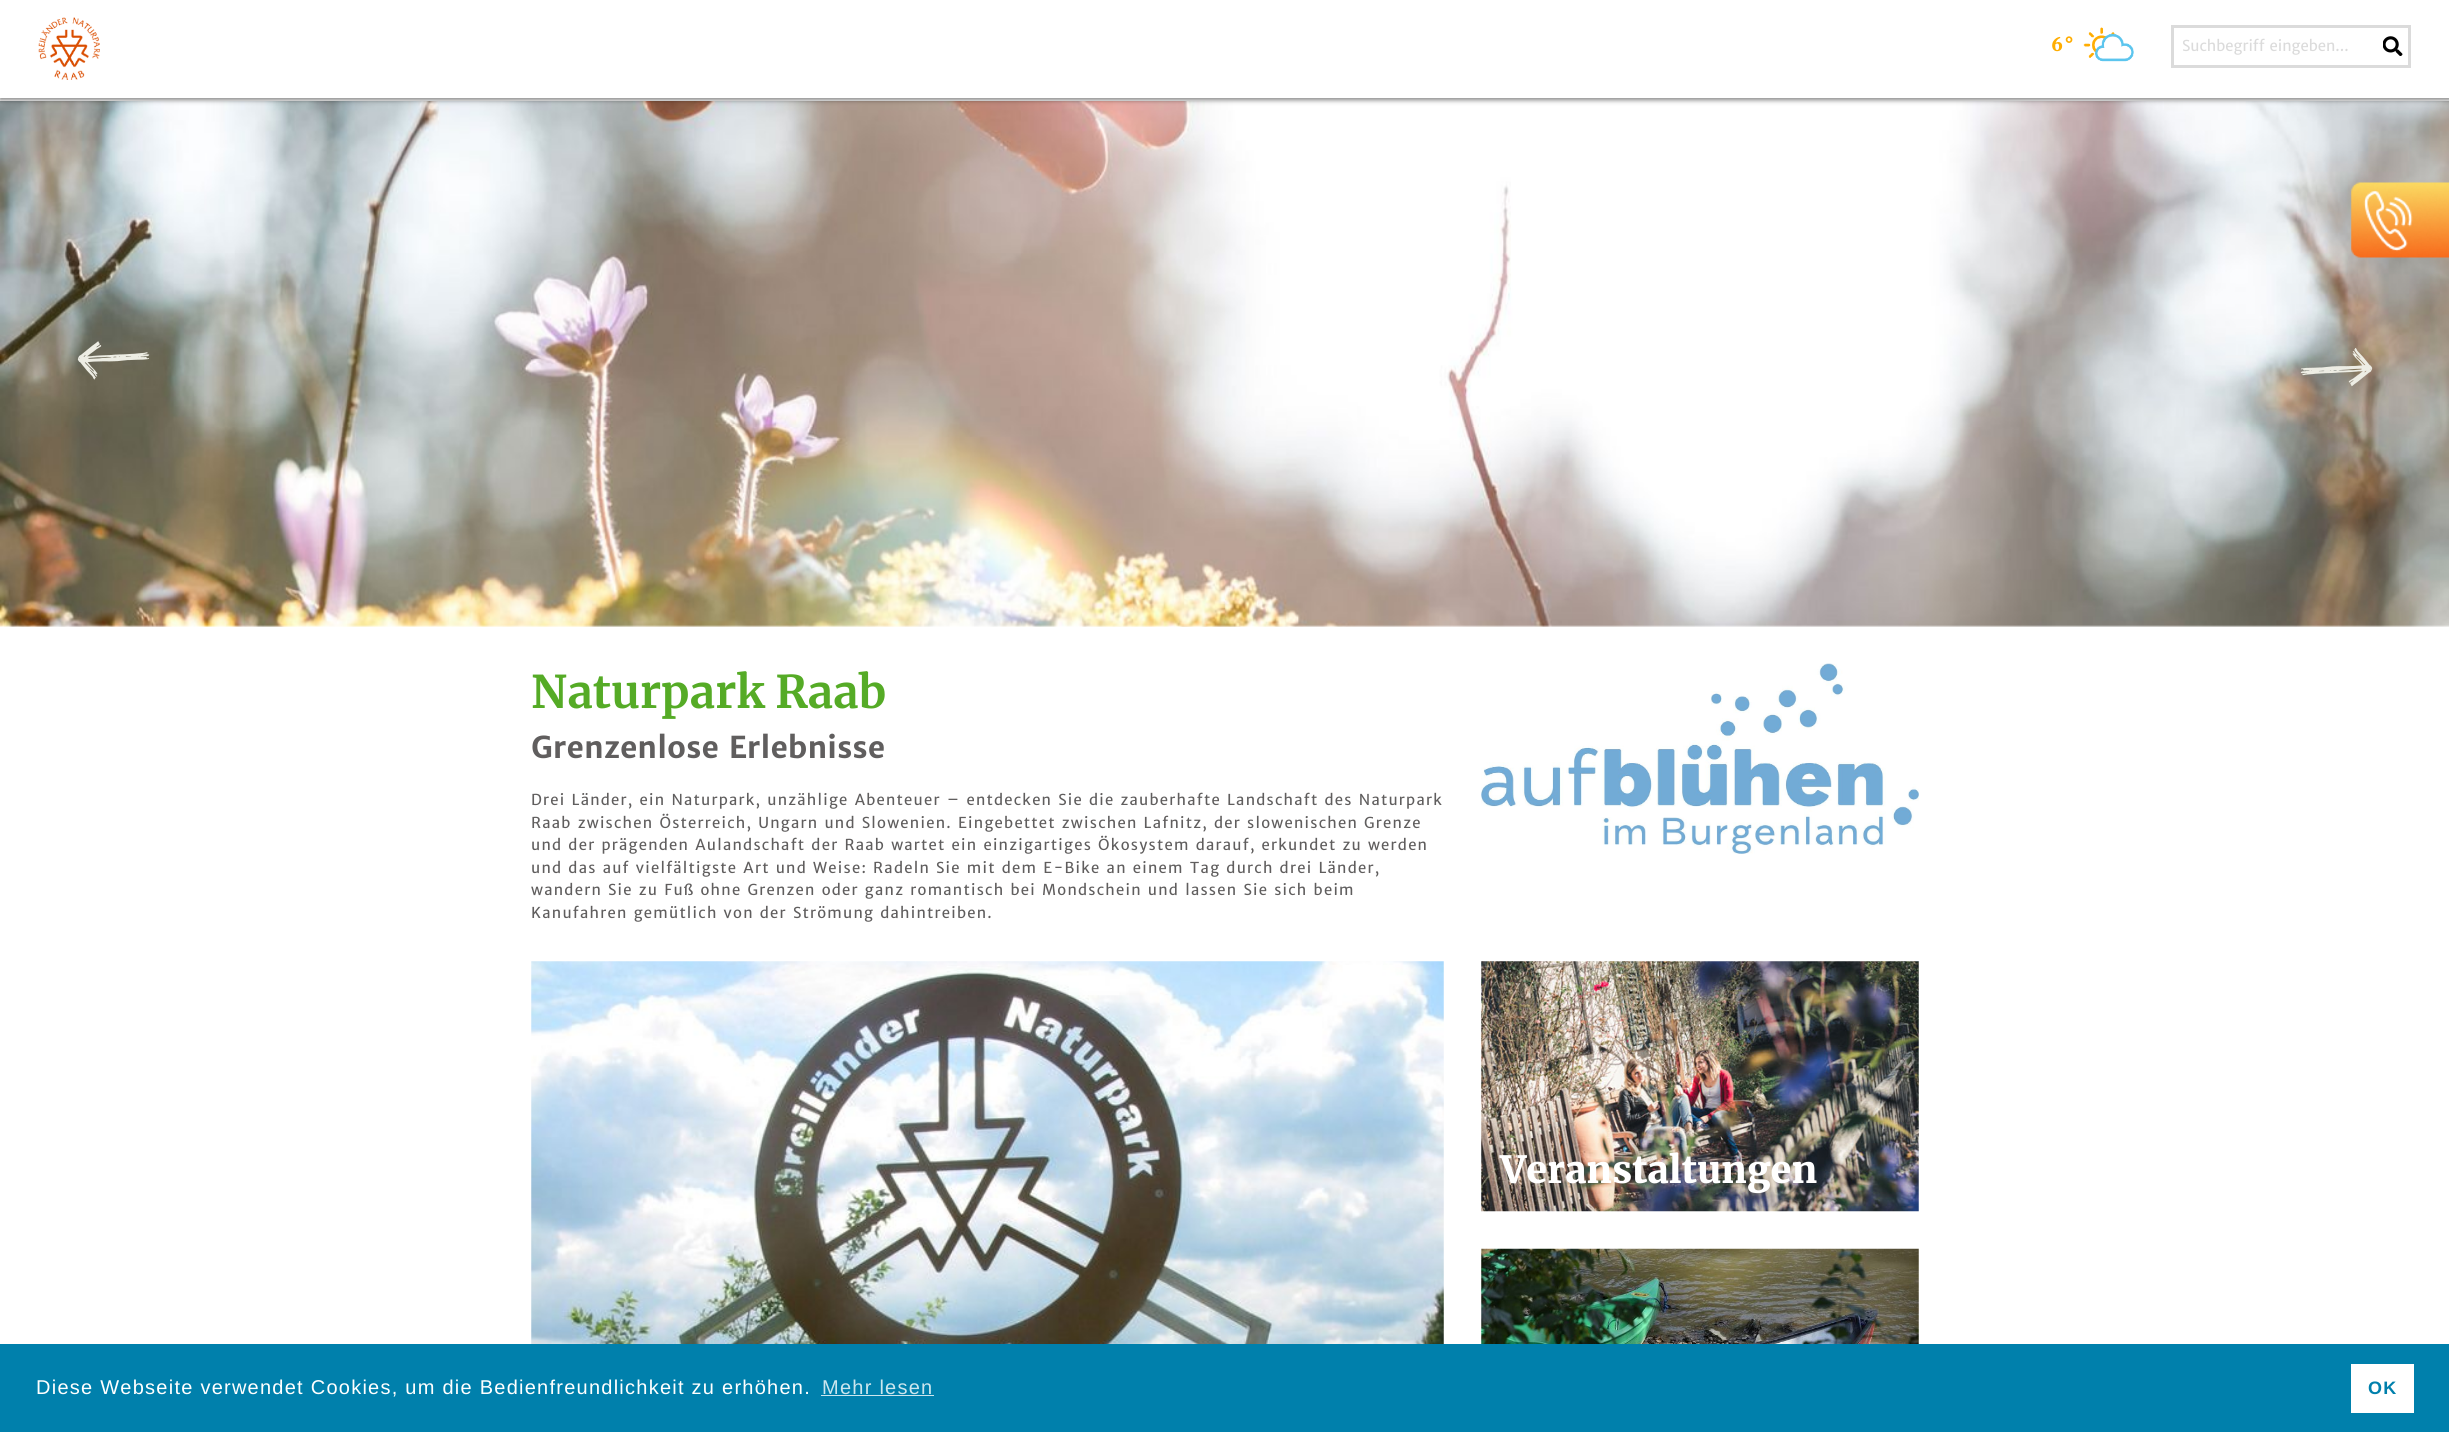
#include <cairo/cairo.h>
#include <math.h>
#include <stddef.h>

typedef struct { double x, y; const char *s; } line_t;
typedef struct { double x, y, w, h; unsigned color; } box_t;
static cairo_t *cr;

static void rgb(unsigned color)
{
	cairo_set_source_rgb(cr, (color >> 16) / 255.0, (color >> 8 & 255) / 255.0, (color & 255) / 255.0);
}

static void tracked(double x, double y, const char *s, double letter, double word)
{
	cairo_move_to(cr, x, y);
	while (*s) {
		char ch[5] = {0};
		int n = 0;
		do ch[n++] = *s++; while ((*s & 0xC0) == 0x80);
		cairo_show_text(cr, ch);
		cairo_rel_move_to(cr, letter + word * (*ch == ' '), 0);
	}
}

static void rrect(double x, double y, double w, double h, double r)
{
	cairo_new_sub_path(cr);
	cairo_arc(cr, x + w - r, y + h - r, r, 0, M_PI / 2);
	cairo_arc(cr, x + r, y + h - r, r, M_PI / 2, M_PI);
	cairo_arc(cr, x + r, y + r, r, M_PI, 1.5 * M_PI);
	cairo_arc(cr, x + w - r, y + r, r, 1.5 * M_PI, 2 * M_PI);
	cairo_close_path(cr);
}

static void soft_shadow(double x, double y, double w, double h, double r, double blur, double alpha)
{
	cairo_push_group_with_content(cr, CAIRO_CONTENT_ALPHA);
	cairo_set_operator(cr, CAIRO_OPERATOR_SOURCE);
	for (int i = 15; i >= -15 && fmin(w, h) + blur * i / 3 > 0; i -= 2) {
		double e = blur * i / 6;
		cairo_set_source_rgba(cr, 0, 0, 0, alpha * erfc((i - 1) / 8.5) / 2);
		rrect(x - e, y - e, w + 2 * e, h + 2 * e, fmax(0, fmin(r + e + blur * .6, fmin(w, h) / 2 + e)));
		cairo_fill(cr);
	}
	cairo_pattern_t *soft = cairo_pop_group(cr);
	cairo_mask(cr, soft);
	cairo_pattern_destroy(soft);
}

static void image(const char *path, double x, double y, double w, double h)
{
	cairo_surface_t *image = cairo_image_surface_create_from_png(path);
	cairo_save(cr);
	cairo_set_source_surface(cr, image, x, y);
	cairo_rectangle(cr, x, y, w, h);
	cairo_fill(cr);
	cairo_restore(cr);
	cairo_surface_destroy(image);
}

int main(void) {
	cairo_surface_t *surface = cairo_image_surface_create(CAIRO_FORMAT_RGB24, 2449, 1432);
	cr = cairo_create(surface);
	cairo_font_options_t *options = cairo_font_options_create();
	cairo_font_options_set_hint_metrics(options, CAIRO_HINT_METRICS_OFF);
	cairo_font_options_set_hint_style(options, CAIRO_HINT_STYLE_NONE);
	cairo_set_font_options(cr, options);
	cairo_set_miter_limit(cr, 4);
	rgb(0xffffff);
	cairo_paint(cr);
	image("img/4.png", 0, 101, 2449, 526);
	rgb(0x000000);
	soft_shadow(0, 3, 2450, 97, 0, 2.5, 0.5);
	rgb(0xffffff);
	cairo_rectangle(cr, 0, 0, 2449, 98);
	cairo_fill(cr);
	image("img/1.png", 38, 17, 62, 63);
	image("img/2.png", 2083, 27, 51, 35);
	cairo_rectangle(cr, 2172.5, 26.5, 237, 40);
	rgb(0xdbdbdb);
	cairo_set_line_width(cr, 3);
	cairo_stroke(cr);
	image("img/3.png", 2383, 36, 20, 20);
	image("img/5.png", 2351, 182, 98, 76);
	image("img/6.png", 77, 341, 73, 39);
	image("img/7.png", 2300, 348, 73, 39);
	image("img/8.png", 1481, 663, 438, 191);
	image("img/9.png", 531, 961, 913, 383);
	image("img/10.png", 1481, 961, 438, 251);
	image("img/11.png", 1481, 1248, 438, 96);
	{
		static const box_t items[] = {
			{0, 1344, 2449, 88, 0x0080ac},
			{821, 1395, 113, 1, 0xcce6ee},
			{2351, 1364, 63, 49, 0xffffff},
		};
		for (size_t i = 0; i < sizeof items / sizeof *items; i++) {
			rgb(items[i].color);
			cairo_rectangle(cr, items[i].x, items[i].y, items[i].w, items[i].h);
			cairo_fill(cr);
		}
	}
	cairo_select_font_face(cr, "Merriweather Black", CAIRO_FONT_SLANT_NORMAL, CAIRO_FONT_WEIGHT_NORMAL);
	cairo_set_font_size(cr, 18);
	rgb(0xffad01);
	tracked(2051, 51, "6°", 1.25, 0);
	cairo_select_font_face(cr, "Merriweather Sans", CAIRO_FONT_SLANT_NORMAL, CAIRO_FONT_WEIGHT_NORMAL);
	cairo_set_font_size(cr, 15);
	rgb(0xdbdbdb);
	cairo_move_to(cr, 2182, 51);
	cairo_show_text(cr, "Suchbegriff eingeben...");
	cairo_select_font_face(cr, "Merriweather", CAIRO_FONT_SLANT_NORMAL, CAIRO_FONT_WEIGHT_BOLD);
	cairo_set_font_size(cr, 45);
	rgb(0x55ab26);
	cairo_move_to(cr, 531, 708);
	cairo_show_text(cr, "Naturpark Raab");
	cairo_select_font_face(cr, "Merriweather Sans", CAIRO_FONT_SLANT_NORMAL, CAIRO_FONT_WEIGHT_BOLD);
	cairo_set_font_size(cr, 30);
	rgb(0x605e5e);
	cairo_move_to(cr, 531, 758);
	cairo_show_text(cr, "Grenzenlose Erlebnisse");
	cairo_select_font_face(cr, "Merriweather Sans", CAIRO_FONT_SLANT_NORMAL, CAIRO_FONT_WEIGHT_NORMAL);
	cairo_set_font_size(cr, 15);
	{
		static const line_t items[] = {
			{531, 805, "Drei Länder, ein Naturpark, unzählige Abenteuer – entdecken Sie die zauberhafte Landschaft des Naturpark"},
			{531, 828, "Raab zwischen Österreich, Ungarn und Slowenien. Eingebettet zwischen Lafnitz, der slowenischen Grenze"},
			{531, 850, "und der prägenden Aulandschaft der Raab wartet ein einzigartiges Ökosystem darauf, erkundet zu werden"},
			{531, 873, "und das auf vielfältigste Art und Weise: Radeln Sie mit dem E-Bike an einem Tag durch drei Länder,"},
			{531, 895, "wandern Sie zu Fuß ohne Grenzen oder ganz romantisch bei Mondschein und lassen Sie sich beim"},
			{531, 918, "Kanufahren gemütlich von der Strömung dahintreiben."},
		};
		for (size_t i = 0; i < sizeof items / sizeof *items; i++) {
			tracked(items[i].x, items[i].y, items[i].s, 1.25, 0);
		}
	}
	cairo_select_font_face(cr, "Merriweather Black", CAIRO_FONT_SLANT_NORMAL, CAIRO_FONT_WEIGHT_NORMAL);
	cairo_set_font_size(cr, 37.5);
	rgb(0xffffff);
	cairo_move_to(cr, 1500, 1183);
	cairo_show_text(cr, "Veranstaltungen");
	cairo_select_font_face(cr, "Liberation Sans", CAIRO_FONT_SLANT_NORMAL, CAIRO_FONT_WEIGHT_NORMAL);
	cairo_set_font_size(cr, 20);
	tracked(36, 1394, "Diese Webseite verwendet Cookies, um die Bedienfreundlichkeit zu erhöhen.", 1.25, 0);
	rgb(0xcce6ee);
	tracked(822, 1394, "Mehr lesen", 1.25, 0);
	cairo_select_font_face(cr, "Liberation Sans", CAIRO_FONT_SLANT_NORMAL, CAIRO_FONT_WEIGHT_BOLD);
	cairo_set_font_size(cr, 18);
	rgb(0x0080ac);
	tracked(2368, 1394, "OK", 1.25, 0);
	cairo_surface_write_to_png(surface, "page.png");
	cairo_font_options_destroy(options);
	cairo_destroy(cr);
	cairo_surface_destroy(surface);
	return 0;
}
